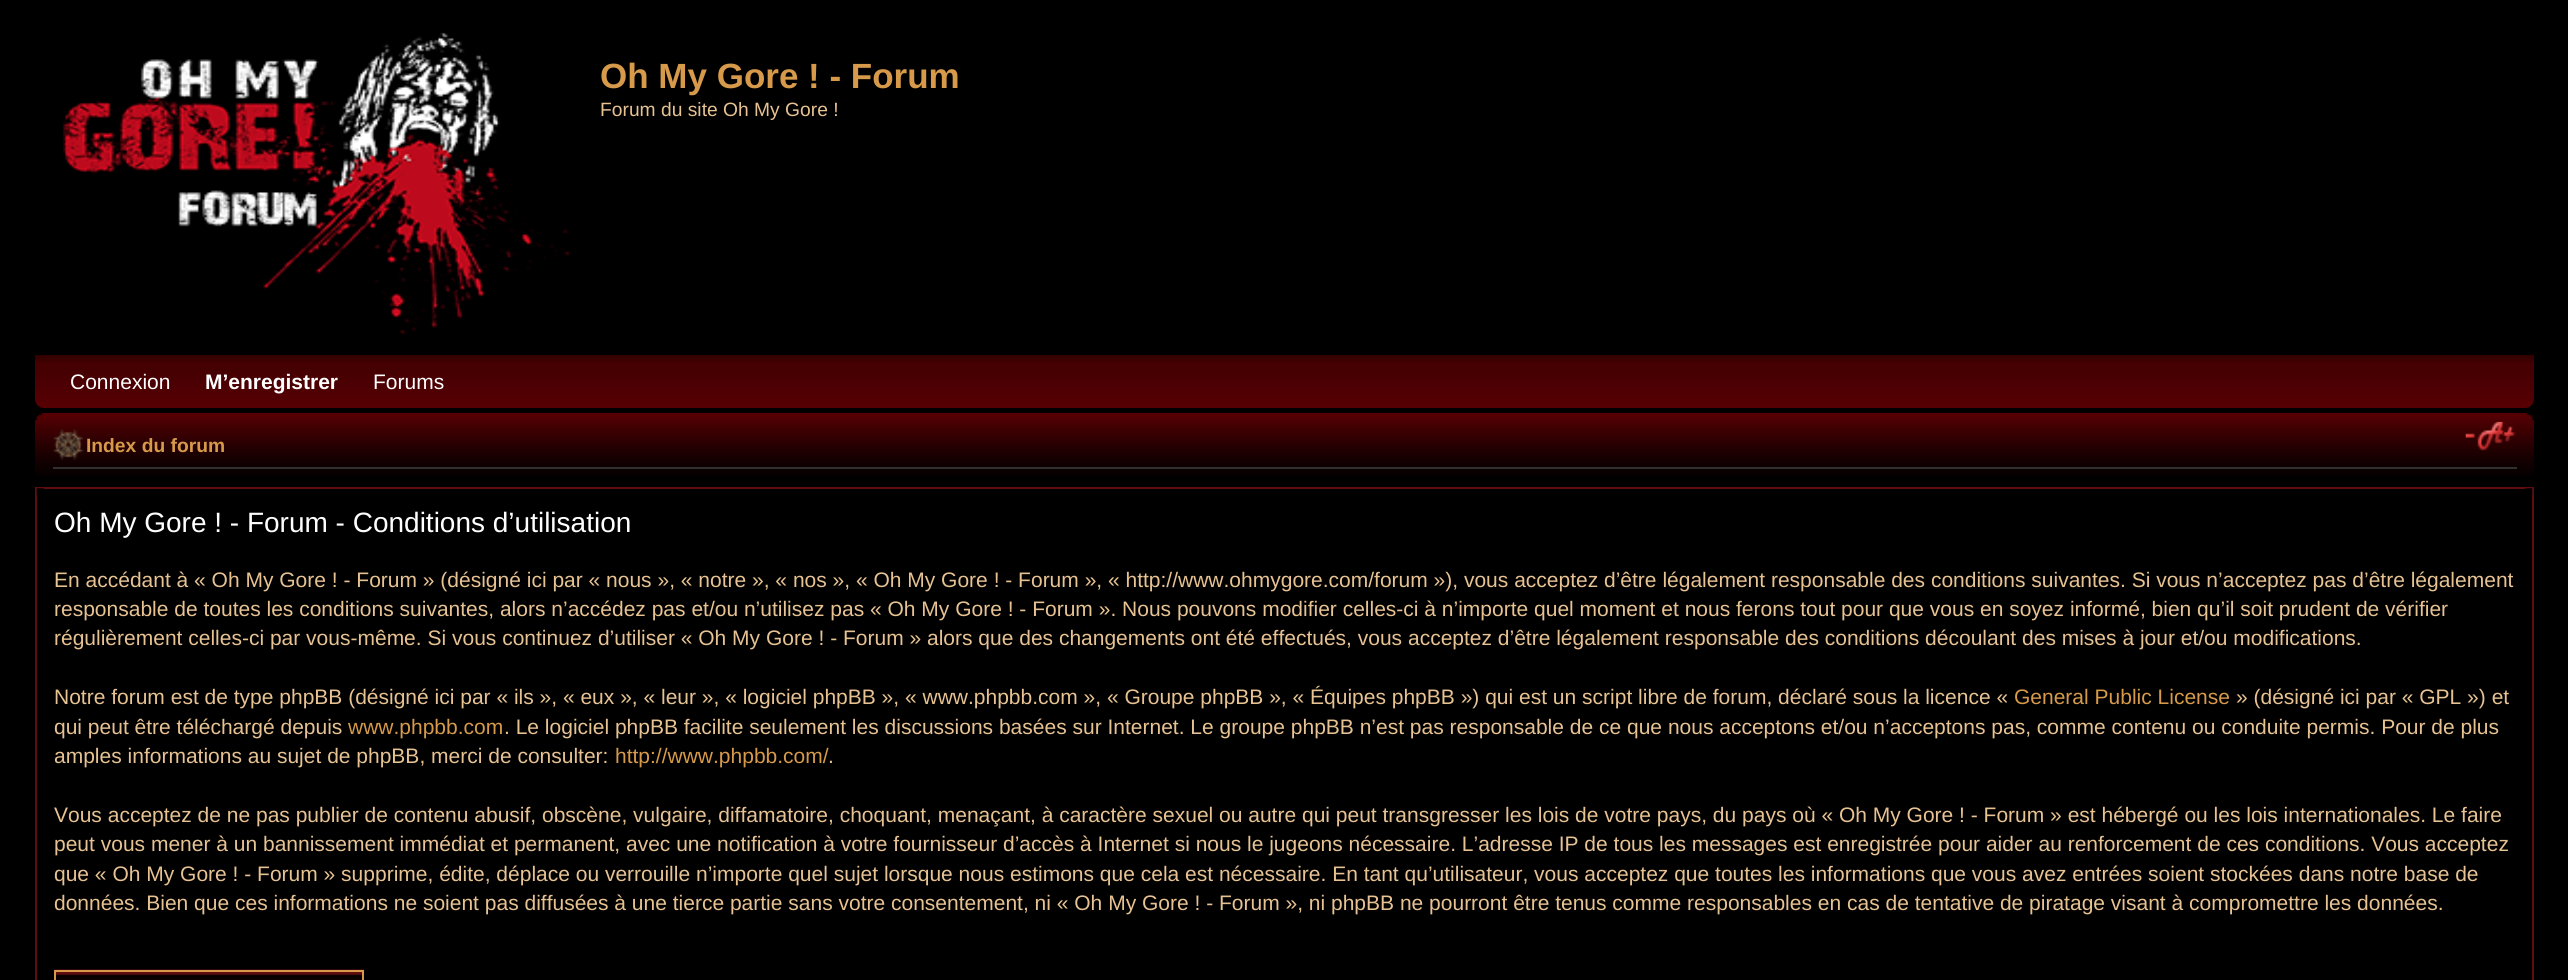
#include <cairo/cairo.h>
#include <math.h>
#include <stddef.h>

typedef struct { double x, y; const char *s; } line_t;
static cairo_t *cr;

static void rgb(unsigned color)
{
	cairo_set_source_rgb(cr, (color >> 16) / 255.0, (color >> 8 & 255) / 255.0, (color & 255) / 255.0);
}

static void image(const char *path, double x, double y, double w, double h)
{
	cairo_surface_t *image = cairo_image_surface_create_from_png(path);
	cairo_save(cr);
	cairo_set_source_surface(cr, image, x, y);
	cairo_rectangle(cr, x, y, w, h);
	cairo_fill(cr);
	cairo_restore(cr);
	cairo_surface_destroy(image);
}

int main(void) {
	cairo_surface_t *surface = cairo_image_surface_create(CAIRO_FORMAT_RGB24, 2568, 980);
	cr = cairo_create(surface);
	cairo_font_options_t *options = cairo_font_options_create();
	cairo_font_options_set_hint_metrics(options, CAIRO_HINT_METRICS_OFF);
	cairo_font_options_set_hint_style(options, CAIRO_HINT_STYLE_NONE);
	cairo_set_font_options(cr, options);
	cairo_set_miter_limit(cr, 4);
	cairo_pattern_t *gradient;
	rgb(0x000000);
	cairo_paint(cr);
	image("img/1.png", 62, 32, 508, 303);
	rgb(0x570003);
	cairo_new_path(cr);
	cairo_move_to(cr, 35, 355);
	cairo_line_to(cr, 2534, 355);
	cairo_line_to(cr, 2534, 399);
	cairo_curve_to(cr, 2534, 404, 2530, 408, 2525, 408);
	cairo_line_to(cr, 44, 408);
	cairo_curve_to(cr, 39, 408, 35, 404, 35, 399);
	cairo_close_path(cr);
	cairo_fill(cr);
	gradient = cairo_pattern_create_linear(35, 355, 35, 408);
	cairo_pattern_add_color_stop_rgba(gradient, 0, 0.196, 0, 0, 1);
	cairo_pattern_add_color_stop_rgba(gradient, 0.2, 0.196, 0, 0, 0.4);
	cairo_pattern_add_color_stop_rgba(gradient, 0.3, 0, 0, 0, 0.2);
	cairo_pattern_add_color_stop_rgba(gradient, 1, 0, 0, 0, 0);
	cairo_set_source(cr, gradient);
	cairo_pattern_destroy(gradient);
	cairo_rectangle(cr, 35, 355, 2499, 48);
	cairo_fill(cr);
	image("img/2.png", 35, 413, 2499, 63);
	image("img/3.png", 35, 413, 8, 8);
	image("img/4.png", 2526, 413, 8, 8);
	rgb(0x323131);
	cairo_rectangle(cr, 53, 467, 2464, 2);
	cairo_fill(cr);
	image("img/5.png", 53, 429, 31, 31);
	image("img/6.png", 2465, 421, 51, 30);
	image("img/7.png", 35, 473, 2, 3);
	image("img/8.png", 2532, 473, 2, 3);
	cairo_rectangle(cr, 36, 488, 2497, 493);
	rgb(0x620d0d);
	cairo_stroke(cr);
	image("img/9.png", 36, 488, 9, 8);
	image("img/10.png", 2524, 488, 9, 8);
	image("img/11.png", 54, 969, 310, 11);
	cairo_rectangle(cr, 55, 971, 308, 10);
	rgb(0xd69a4a);
	cairo_stroke(cr);
	cairo_select_font_face(cr, "Liberation Sans", CAIRO_FONT_SLANT_NORMAL, CAIRO_FONT_WEIGHT_BOLD);
	cairo_set_font_size(cr, 35);
	cairo_move_to(cr, 600, 88);
	cairo_show_text(cr, "Oh My Gore ! - Forum");
	cairo_select_font_face(cr, "Liberation Sans", CAIRO_FONT_SLANT_NORMAL, CAIRO_FONT_WEIGHT_NORMAL);
	cairo_set_font_size(cr, 19.25);
	rgb(0xe7c292);
	cairo_move_to(cr, 600, 116);
	cairo_show_text(cr, "Forum du site Oh My Gore !");
	cairo_set_font_size(cr, 21);
	rgb(0xffffff);
	cairo_move_to(cr, 70, 389);
	cairo_show_text(cr, "Connexion");
	cairo_select_font_face(cr, "Liberation Sans", CAIRO_FONT_SLANT_NORMAL, CAIRO_FONT_WEIGHT_BOLD);
	cairo_move_to(cr, 205, 389);
	cairo_show_text(cr, "M’enregistrer");
	cairo_select_font_face(cr, "Liberation Sans", CAIRO_FONT_SLANT_NORMAL, CAIRO_FONT_WEIGHT_NORMAL);
	cairo_move_to(cr, 373, 389);
	cairo_show_text(cr, "Forums");
	cairo_select_font_face(cr, "Liberation Sans", CAIRO_FONT_SLANT_NORMAL, CAIRO_FONT_WEIGHT_BOLD);
	cairo_set_font_size(cr, 19.25);
	rgb(0xd69a4a);
	cairo_move_to(cr, 86, 452);
	cairo_show_text(cr, "Index du forum");
	cairo_select_font_face(cr, "Liberation Sans", CAIRO_FONT_SLANT_NORMAL, CAIRO_FONT_WEIGHT_NORMAL);
	cairo_set_font_size(cr, 28);
	rgb(0xffffff);
	cairo_move_to(cr, 54, 532);
	cairo_show_text(cr, "Oh My Gore ! - Forum - Conditions d’utilisation");
	cairo_set_font_size(cr, 21);
	rgb(0xe7c292);
	{
		static const line_t items[] = {
			{54, 587, "En accédant à « Oh My Gore ! - Forum » (désigné ici par « nous », « notre », « nos », « Oh My Gore ! - Forum », « http://www.ohmygore.com/forum »), vous acceptez d’être légalement responsable des conditions suivantes. Si vous n’acceptez pas d’être légalement"},
			{54, 616, "responsable de toutes les conditions suivantes, alors n’accédez pas et/ou n’utilisez pas « Oh My Gore ! - Forum ». Nous pouvons modifier celles-ci à n’importe quel moment et nous ferons tout pour que vous en soyez informé, bien qu’il soit prudent de vérifier"},
			{54, 645, "régulièrement celles-ci par vous-même. Si vous continuez d’utiliser « Oh My Gore ! - Forum » alors que des changements ont été effectués, vous acceptez d’être légalement responsable des conditions découlant des mises à jour et/ou modifications."},
			{54, 704, "Notre forum est de type phpBB (désigné ici par « ils », « eux », « leur », « logiciel phpBB », « www.phpbb.com », « Groupe phpBB », « Équipes phpBB ») qui est un script libre de forum, déclaré sous la licence «"},
		};
		for (size_t i = 0; i < sizeof items / sizeof *items; i++) {
			cairo_move_to(cr, items[i].x, items[i].y);
			cairo_show_text(cr, items[i].s);
		}
	}
	rgb(0xd69a4a);
	cairo_move_to(cr, 2014, 704);
	cairo_show_text(cr, "General Public License");
	rgb(0xe7c292);
	cairo_move_to(cr, 2236, 704);
	cairo_show_text(cr, "» (désigné ici par « GPL ») et");
	cairo_move_to(cr, 54, 734);
	cairo_show_text(cr, "qui peut être téléchargé depuis");
	rgb(0xd69a4a);
	cairo_move_to(cr, 348, 734);
	cairo_show_text(cr, "www.phpbb.com");
	rgb(0xe7c292);
	cairo_move_to(cr, 504, 734);
	cairo_show_text(cr, ". Le logiciel phpBB facilite seulement les discussions basées sur Internet. Le groupe phpBB n’est pas responsable de ce que nous acceptons et/ou n’acceptons pas, comme contenu ou conduite permis. Pour de plus");
	cairo_move_to(cr, 54, 763);
	cairo_show_text(cr, "amples informations au sujet de phpBB, merci de consulter:");
	rgb(0xd69a4a);
	cairo_move_to(cr, 615, 763);
	cairo_show_text(cr, "http://www.phpbb.com/");
	rgb(0xe7c292);
	{
		static const line_t items[] = {
			{828, 763, "."},
			{54, 822, "Vous acceptez de ne pas publier de contenu abusif, obscène, vulgaire, diffamatoire, choquant, menaçant, à caractère sexuel ou autre qui peut transgresser les lois de votre pays, du pays où « Oh My Gore ! - Forum » est hébergé ou les lois internationales. Le faire"},
			{54, 851, "peut vous mener à un bannissement immédiat et permanent, avec une notification à votre fournisseur d’accès à Internet si nous le jugeons nécessaire. L’adresse IP de tous les messages est enregistrée pour aider au renforcement de ces conditions. Vous acceptez"},
			{54, 881, "que « Oh My Gore ! - Forum » supprime, édite, déplace ou verrouille n’importe quel sujet lorsque nous estimons que cela est nécessaire. En tant qu’utilisateur, vous acceptez que toutes les informations que vous avez entrées soient stockées dans notre base de"},
			{54, 910, "données. Bien que ces informations ne soient pas diffusées à une tierce partie sans votre consentement, ni « Oh My Gore ! - Forum », ni phpBB ne pourront être tenus comme responsables en cas de tentative de piratage visant à compromettre les données."},
		};
		for (size_t i = 0; i < sizeof items / sizeof *items; i++) {
			cairo_move_to(cr, items[i].x, items[i].y);
			cairo_show_text(cr, items[i].s);
		}
	}
	cairo_surface_write_to_png(surface, "page.png");
	cairo_font_options_destroy(options);
	cairo_destroy(cr);
	cairo_surface_destroy(surface);
	return 0;
}
